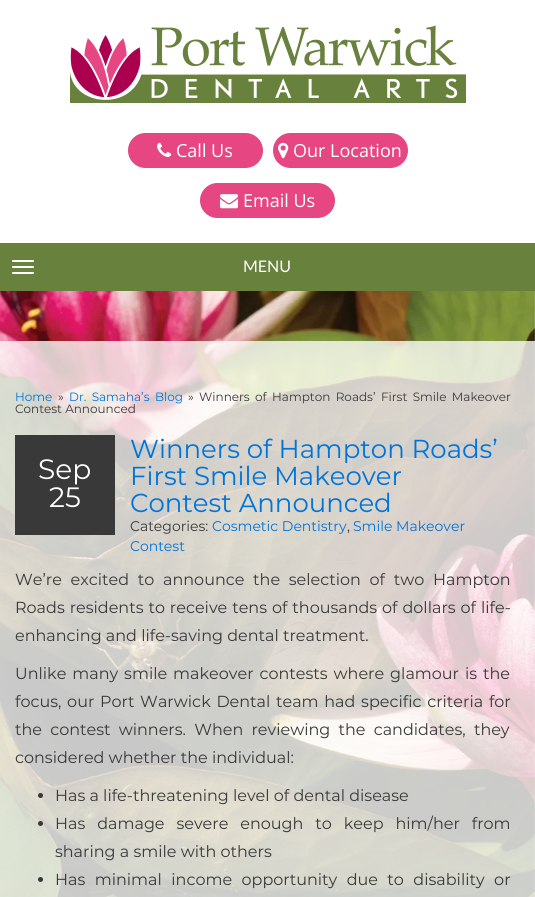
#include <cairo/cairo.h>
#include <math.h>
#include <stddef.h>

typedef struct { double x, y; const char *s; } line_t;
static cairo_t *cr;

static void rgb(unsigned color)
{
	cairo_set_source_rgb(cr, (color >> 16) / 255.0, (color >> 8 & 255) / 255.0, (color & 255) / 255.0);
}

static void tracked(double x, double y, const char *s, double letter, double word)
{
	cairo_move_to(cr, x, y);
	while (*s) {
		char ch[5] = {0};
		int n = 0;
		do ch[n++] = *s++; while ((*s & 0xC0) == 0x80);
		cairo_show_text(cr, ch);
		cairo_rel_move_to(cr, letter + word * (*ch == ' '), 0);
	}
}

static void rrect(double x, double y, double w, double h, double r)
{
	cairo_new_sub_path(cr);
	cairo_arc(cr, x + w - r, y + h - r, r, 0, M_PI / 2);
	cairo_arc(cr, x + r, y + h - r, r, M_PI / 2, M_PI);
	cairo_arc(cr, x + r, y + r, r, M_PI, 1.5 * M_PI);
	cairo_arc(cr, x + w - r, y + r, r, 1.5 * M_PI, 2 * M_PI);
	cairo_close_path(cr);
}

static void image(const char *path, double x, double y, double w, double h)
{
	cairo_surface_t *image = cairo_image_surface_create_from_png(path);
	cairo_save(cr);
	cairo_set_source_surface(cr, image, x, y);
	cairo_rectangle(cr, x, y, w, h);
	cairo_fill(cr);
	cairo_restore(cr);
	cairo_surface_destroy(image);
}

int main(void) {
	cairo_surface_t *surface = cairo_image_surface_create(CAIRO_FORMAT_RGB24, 535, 897);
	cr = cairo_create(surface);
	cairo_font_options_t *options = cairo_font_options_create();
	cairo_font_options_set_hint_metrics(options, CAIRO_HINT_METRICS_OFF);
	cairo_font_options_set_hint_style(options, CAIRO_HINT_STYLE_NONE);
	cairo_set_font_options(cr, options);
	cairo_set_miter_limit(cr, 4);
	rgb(0xffffff);
	cairo_paint(cr);
	image("img/1.png", 70, 25, 396, 78);
	rgb(0xe64783);
	rrect(128, 133, 135, 35, 17.5);
	cairo_fill(cr);
	image("img/2.png", 157, 142, 15, 15);
	rrect(273, 133, 135, 35, 17.5);
	cairo_fill(cr);
	image("img/3.png", 278, 142, 11, 17);
	rrect(200, 183, 135, 35, 17.5);
	cairo_fill(cr);
	image("img/4.png", 220, 194, 18, 15);
	rgb(0x68813c);
	cairo_rectangle(cr, 0, 243, 535, 48);
	cairo_fill(cr);
	rgb(0xffffff);
	rrect(12, 260, 22, 2, 1);
	cairo_fill(cr);
	rrect(12, 266, 22, 2, 1);
	cairo_fill(cr);
	rrect(12, 272, 22, 2, 1);
	cairo_fill(cr);
	image("img/5.png", 0, 291, 535, 606);
	rgb(0x393939);
	cairo_rectangle(cr, 15, 435, 100, 100);
	cairo_fill(cr);
	cairo_arc(cr, 40.5, 795.5, 2.5, 0, 2 * M_PI);
	cairo_fill(cr);
	cairo_arc(cr, 40.5, 823.5, 2.5, 0, 2 * M_PI);
	cairo_fill(cr);
	cairo_arc(cr, 40.5, 879.5, 2.5, 0, 2 * M_PI);
	cairo_fill(cr);
	cairo_select_font_face(cr, "Open Sans", CAIRO_FONT_SLANT_NORMAL, CAIRO_FONT_WEIGHT_NORMAL);
	cairo_set_font_size(cr, 18);
	rgb(0xffffff);
	{
		static const line_t items[] = {
			{176, 157, "Call Us"},
			{293, 157, "Our Location"},
			{243, 207, "Email Us"},
		};
		for (size_t i = 0; i < sizeof items / sizeof *items; i++) {
			cairo_move_to(cr, items[i].x, items[i].y);
			cairo_show_text(cr, items[i].s);
		}
	}
	cairo_select_font_face(cr, "Lato", CAIRO_FONT_SLANT_NORMAL, CAIRO_FONT_WEIGHT_NORMAL);
	cairo_set_font_size(cr, 16);
	cairo_move_to(cr, 243, 272);
	cairo_show_text(cr, "MENU");
	cairo_select_font_face(cr, "Montserrat", CAIRO_FONT_SLANT_NORMAL, CAIRO_FONT_WEIGHT_NORMAL);
	cairo_set_font_size(cr, 12);
	rgb(0x0074d9);
	cairo_move_to(cr, 15, 401);
	cairo_show_text(cr, "Home");
	rgb(0x393939);
	cairo_move_to(cr, 58, 401);
	cairo_show_text(cr, "»");
	rgb(0x0074d9);
	tracked(69, 401, "Dr. Samaha’s Blog", 0, 2.25);
	rgb(0x393939);
	cairo_move_to(cr, 188, 401);
	cairo_show_text(cr, "»");
	tracked(199, 401, "Winners of Hampton Roads’ First Smile Makeover", 0, 2.25);
	cairo_move_to(cr, 15, 413);
	cairo_show_text(cr, "Contest Announced");
	cairo_set_font_size(cr, 28);
	rgb(0xffffff);
	cairo_move_to(cr, 38, 479);
	cairo_show_text(cr, "Sep");
	cairo_move_to(cr, 49, 507);
	cairo_show_text(cr, "25");
	cairo_set_font_size(cr, 26);
	rgb(0x0074d9);
	{
		static const line_t items[] = {
			{130, 458, "Winners of Hampton Roads’"},
			{130, 485, "First Smile Makeover"},
			{130, 512, "Contest Announced"},
		};
		for (size_t i = 0; i < sizeof items / sizeof *items; i++) {
			cairo_move_to(cr, items[i].x, items[i].y);
			cairo_show_text(cr, items[i].s);
		}
	}
	cairo_set_font_size(cr, 14);
	rgb(0x393939);
	cairo_move_to(cr, 130, 531);
	cairo_show_text(cr, "Categories:");
	rgb(0x0074d9);
	cairo_move_to(cr, 212, 531);
	cairo_show_text(cr, "Cosmetic Dentistry");
	rgb(0x393939);
	cairo_move_to(cr, 347, 531);
	cairo_show_text(cr, ",");
	rgb(0x0074d9);
	cairo_move_to(cr, 353, 531);
	cairo_show_text(cr, "Smile Makeover");
	cairo_move_to(cr, 130, 551);
	cairo_show_text(cr, "Contest");
	cairo_set_font_size(cr, 16);
	rgb(0x393939);
	tracked(15, 585, "We’re excited to announce the selection of two Hampton", 0, 4.5);
	tracked(15, 613, "Roads residents to receive tens of thousands of dollars of life-", 0, 0.75);
	cairo_move_to(cr, 15, 641);
	cairo_show_text(cr, "enhancing and life-saving dental treatment.");
	tracked(15, 679, "Unlike many smile makeover contests where glamour is the", 0, 1.75);
	tracked(15, 707, "focus, our Port Warwick Dental team had specific criteria for", 0, 1.5);
	tracked(15, 735, "the contest winners. When reviewing the candidates, they", 0, 4);
	cairo_move_to(cr, 15, 763);
	cairo_show_text(cr, "considered whether the individual:");
	cairo_move_to(cr, 55, 801);
	cairo_show_text(cr, "Has a life-threatening level of dental disease");
	tracked(55, 829, "Has damage severe enough to keep him/her from", 0, 7.75);
	cairo_move_to(cr, 55, 857);
	cairo_show_text(cr, "sharing a smile with others");
	tracked(55, 885, "Has minimal income opportunity due to disability or", 0, 5.25);
	cairo_surface_write_to_png(surface, "page.png");
	cairo_font_options_destroy(options);
	cairo_destroy(cr);
	cairo_surface_destroy(surface);
	return 0;
}
